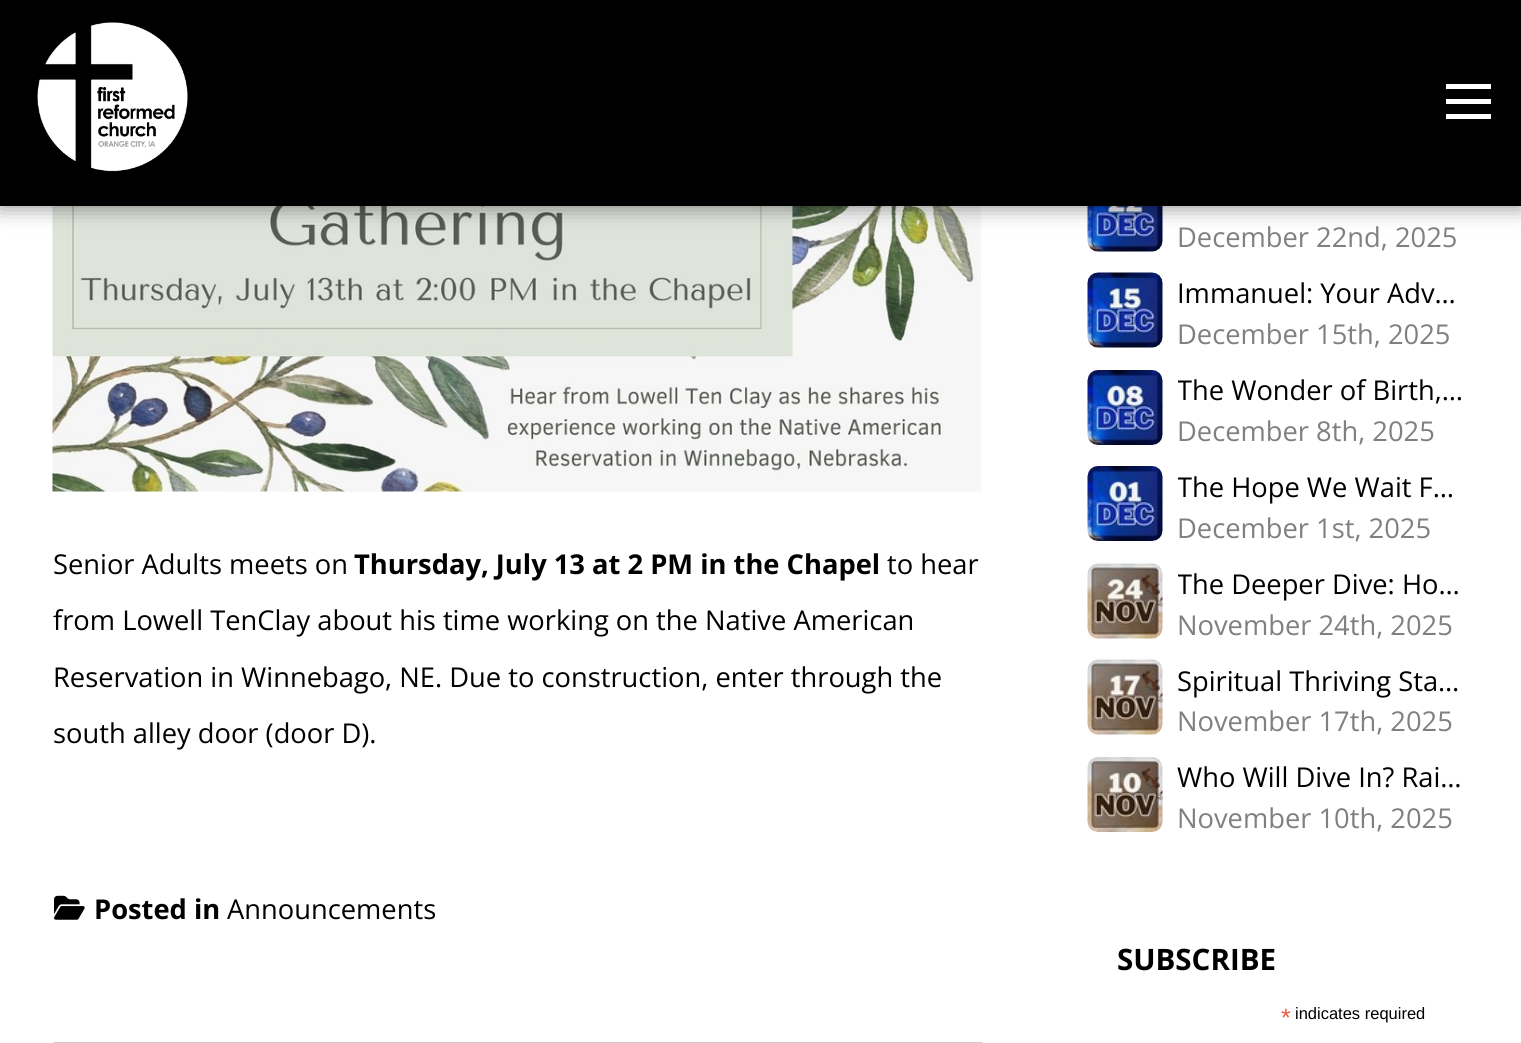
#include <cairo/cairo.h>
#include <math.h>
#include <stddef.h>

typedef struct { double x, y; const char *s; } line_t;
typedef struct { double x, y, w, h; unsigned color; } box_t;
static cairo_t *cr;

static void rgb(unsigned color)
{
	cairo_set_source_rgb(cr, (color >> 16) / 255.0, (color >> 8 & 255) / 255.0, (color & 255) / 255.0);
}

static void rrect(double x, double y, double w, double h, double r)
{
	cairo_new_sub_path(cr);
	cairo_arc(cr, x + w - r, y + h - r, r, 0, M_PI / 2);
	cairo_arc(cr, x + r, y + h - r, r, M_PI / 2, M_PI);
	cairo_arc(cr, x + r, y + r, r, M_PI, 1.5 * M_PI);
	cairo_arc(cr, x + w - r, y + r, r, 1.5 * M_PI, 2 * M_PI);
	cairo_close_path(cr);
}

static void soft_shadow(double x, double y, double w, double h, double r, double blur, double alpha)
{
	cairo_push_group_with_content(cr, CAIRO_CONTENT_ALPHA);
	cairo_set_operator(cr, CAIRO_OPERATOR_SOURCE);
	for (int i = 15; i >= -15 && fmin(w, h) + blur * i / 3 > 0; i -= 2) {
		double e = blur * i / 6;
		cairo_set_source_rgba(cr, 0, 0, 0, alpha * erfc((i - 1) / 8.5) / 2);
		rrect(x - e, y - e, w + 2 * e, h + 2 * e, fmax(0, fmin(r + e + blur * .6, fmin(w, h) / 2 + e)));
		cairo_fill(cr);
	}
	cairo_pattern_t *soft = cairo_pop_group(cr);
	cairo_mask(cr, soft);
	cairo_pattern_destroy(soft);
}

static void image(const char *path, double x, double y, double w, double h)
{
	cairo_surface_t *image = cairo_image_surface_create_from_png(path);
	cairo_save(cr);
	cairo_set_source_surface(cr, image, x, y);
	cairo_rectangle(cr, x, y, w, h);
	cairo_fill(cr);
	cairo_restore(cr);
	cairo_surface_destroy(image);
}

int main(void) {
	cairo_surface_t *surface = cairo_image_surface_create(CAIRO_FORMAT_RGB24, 1521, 1043);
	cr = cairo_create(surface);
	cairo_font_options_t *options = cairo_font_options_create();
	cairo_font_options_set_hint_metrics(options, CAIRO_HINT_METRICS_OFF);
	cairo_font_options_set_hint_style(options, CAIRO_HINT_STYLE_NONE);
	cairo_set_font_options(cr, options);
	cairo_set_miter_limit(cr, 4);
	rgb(0xffffff);
	cairo_paint(cr);
	image("img/2.png", 52, 206, 929, 286);
	image("img/4.png", 1087, 206, 76, 46);
	rgb(0x000000);
	soft_shadow(0, 0, 1521, 206, 0, 11, 0.5);
	rgb(0x000000);
	cairo_rectangle(cr, 0, 0, 1521, 206);
	cairo_fill(cr);
	image("img/1.png", 37, 22, 151, 150);
	{
		static const box_t items[] = {
			{1446, 84, 45, 5, 0xffffff},
			{1446, 99, 45, 5, 0xffffff},
			{1446, 114, 45, 5, 0xffffff},
		};
		for (size_t i = 0; i < sizeof items / sizeof *items; i++) {
			rgb(items[i].color);
			cairo_rectangle(cr, items[i].x, items[i].y, items[i].w, items[i].h);
			cairo_fill(cr);
		}
	}
	image("img/3.png", 54, 895, 31, 25);
	rgb(0xcccccc);
	cairo_new_path(cr);
	cairo_move_to(cr, 984, 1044);
	cairo_line_to(cr, 52, 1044);
	cairo_line_to(cr, 54, 1042);
	cairo_line_to(cr, 982, 1042);
	cairo_close_path(cr);
	cairo_fill(cr);
	image("img/5.png", 1087, 272, 76, 76);
	image("img/6.png", 1087, 370, 76, 75);
	image("img/7.png", 1087, 466, 76, 75);
	image("img/8.png", 1087, 563, 76, 76);
	image("img/9.png", 1087, 659, 76, 76);
	image("img/10.png", 1087, 757, 76, 75);
	cairo_select_font_face(cr, "Open Sans", CAIRO_FONT_SLANT_NORMAL, CAIRO_FONT_WEIGHT_NORMAL);
	cairo_set_font_size(cr, 27.3);
	rgb(0x000000);
	cairo_move_to(cr, 53, 574);
	cairo_show_text(cr, "Senior Adults meets on");
	cairo_select_font_face(cr, "Open Sans", CAIRO_FONT_SLANT_NORMAL, CAIRO_FONT_WEIGHT_BOLD);
	cairo_move_to(cr, 354, 574);
	cairo_show_text(cr, "Thursday, July 13 at 2 PM in the Chapel");
	cairo_select_font_face(cr, "Open Sans", CAIRO_FONT_SLANT_NORMAL, CAIRO_FONT_WEIGHT_NORMAL);
	{
		static const line_t items[] = {
			{887, 574, "to hear"},
			{53, 630, "from Lowell TenClay about his time working on the Native American"},
			{53, 687, "Reservation in Winnebago, NE. Due to construction, enter through the"},
			{53, 743, "south alley door (door D)."},
		};
		for (size_t i = 0; i < sizeof items / sizeof *items; i++) {
			cairo_move_to(cr, items[i].x, items[i].y);
			cairo_show_text(cr, items[i].s);
		}
	}
	cairo_select_font_face(cr, "Open Sans", CAIRO_FONT_SLANT_NORMAL, CAIRO_FONT_WEIGHT_BOLD);
	cairo_move_to(cr, 94, 919);
	cairo_show_text(cr, "Posted in");
	cairo_select_font_face(cr, "Open Sans", CAIRO_FONT_SLANT_NORMAL, CAIRO_FONT_WEIGHT_NORMAL);
	cairo_move_to(cr, 227, 919);
	cairo_show_text(cr, "Announcements");
	rgb(0x808080);
	cairo_move_to(cr, 1177, 247);
	cairo_show_text(cr, "December 22nd, 2025");
	rgb(0x000000);
	cairo_move_to(cr, 1177, 303);
	cairo_show_text(cr, "Immanuel: Your Adv…");
	rgb(0x808080);
	cairo_move_to(cr, 1177, 344);
	cairo_show_text(cr, "December 15th, 2025");
	cairo_save(cr);
	cairo_rectangle(cr, 1178, 371, 291, 40);
	cairo_clip(cr);
	rgb(0x000000);
	cairo_move_to(cr, 1177, 400);
	cairo_show_text(cr, "The Wonder of Birth,…");
	cairo_restore(cr);
	cairo_move_to(cr, 1177, 441);
	cairo_show_text(cr, "December 8th, 2025");
	cairo_save(cr);
	cairo_rectangle(cr, 1178, 467, 291, 42);
	cairo_clip(cr);
	rgb(0x000000);
	cairo_move_to(cr, 1177, 497);
	cairo_show_text(cr, "The Hope We Wait F…");
	cairo_restore(cr);
	cairo_move_to(cr, 1177, 538);
	cairo_show_text(cr, "December 1st, 2025");
	cairo_save(cr);
	cairo_rectangle(cr, 1178, 564, 291, 41);
	cairo_clip(cr);
	rgb(0x000000);
	cairo_move_to(cr, 1177, 594);
	cairo_show_text(cr, "The Deeper Dive: Ho…");
	cairo_restore(cr);
	cairo_move_to(cr, 1177, 635);
	cairo_show_text(cr, "November 24th, 2025");
	rgb(0x000000);
	cairo_move_to(cr, 1177, 691);
	cairo_show_text(cr, "Spiritual Thriving Sta…");
	rgb(0x808080);
	cairo_move_to(cr, 1177, 731);
	cairo_show_text(cr, "November 17th, 2025");
	rgb(0x000000);
	cairo_move_to(cr, 1177, 787);
	cairo_show_text(cr, "Who Will Dive In? Rai…");
	rgb(0x808080);
	cairo_move_to(cr, 1177, 828);
	cairo_show_text(cr, "November 10th, 2025");
	cairo_select_font_face(cr, "Open Sans", CAIRO_FONT_SLANT_NORMAL, CAIRO_FONT_WEIGHT_BOLD);
	cairo_set_font_size(cr, 29.5);
	rgb(0x000000);
	cairo_move_to(cr, 1117, 970);
	cairo_show_text(cr, "SUBSCRIBE");
	cairo_select_font_face(cr, "Liberation Sans", CAIRO_FONT_SLANT_NORMAL, CAIRO_FONT_WEIGHT_NORMAL);
	cairo_set_font_size(cr, 25);
	rgb(0xe85c41);
	cairo_move_to(cr, 1281, 1026);
	cairo_show_text(cr, "*");
	cairo_set_font_size(cr, 16.5);
	rgb(0x000000);
	cairo_move_to(cr, 1295, 1019);
	cairo_show_text(cr, "indicates required");
	cairo_surface_write_to_png(surface, "page.png");
	cairo_font_options_destroy(options);
	cairo_destroy(cr);
	cairo_surface_destroy(surface);
	return 0;
}
